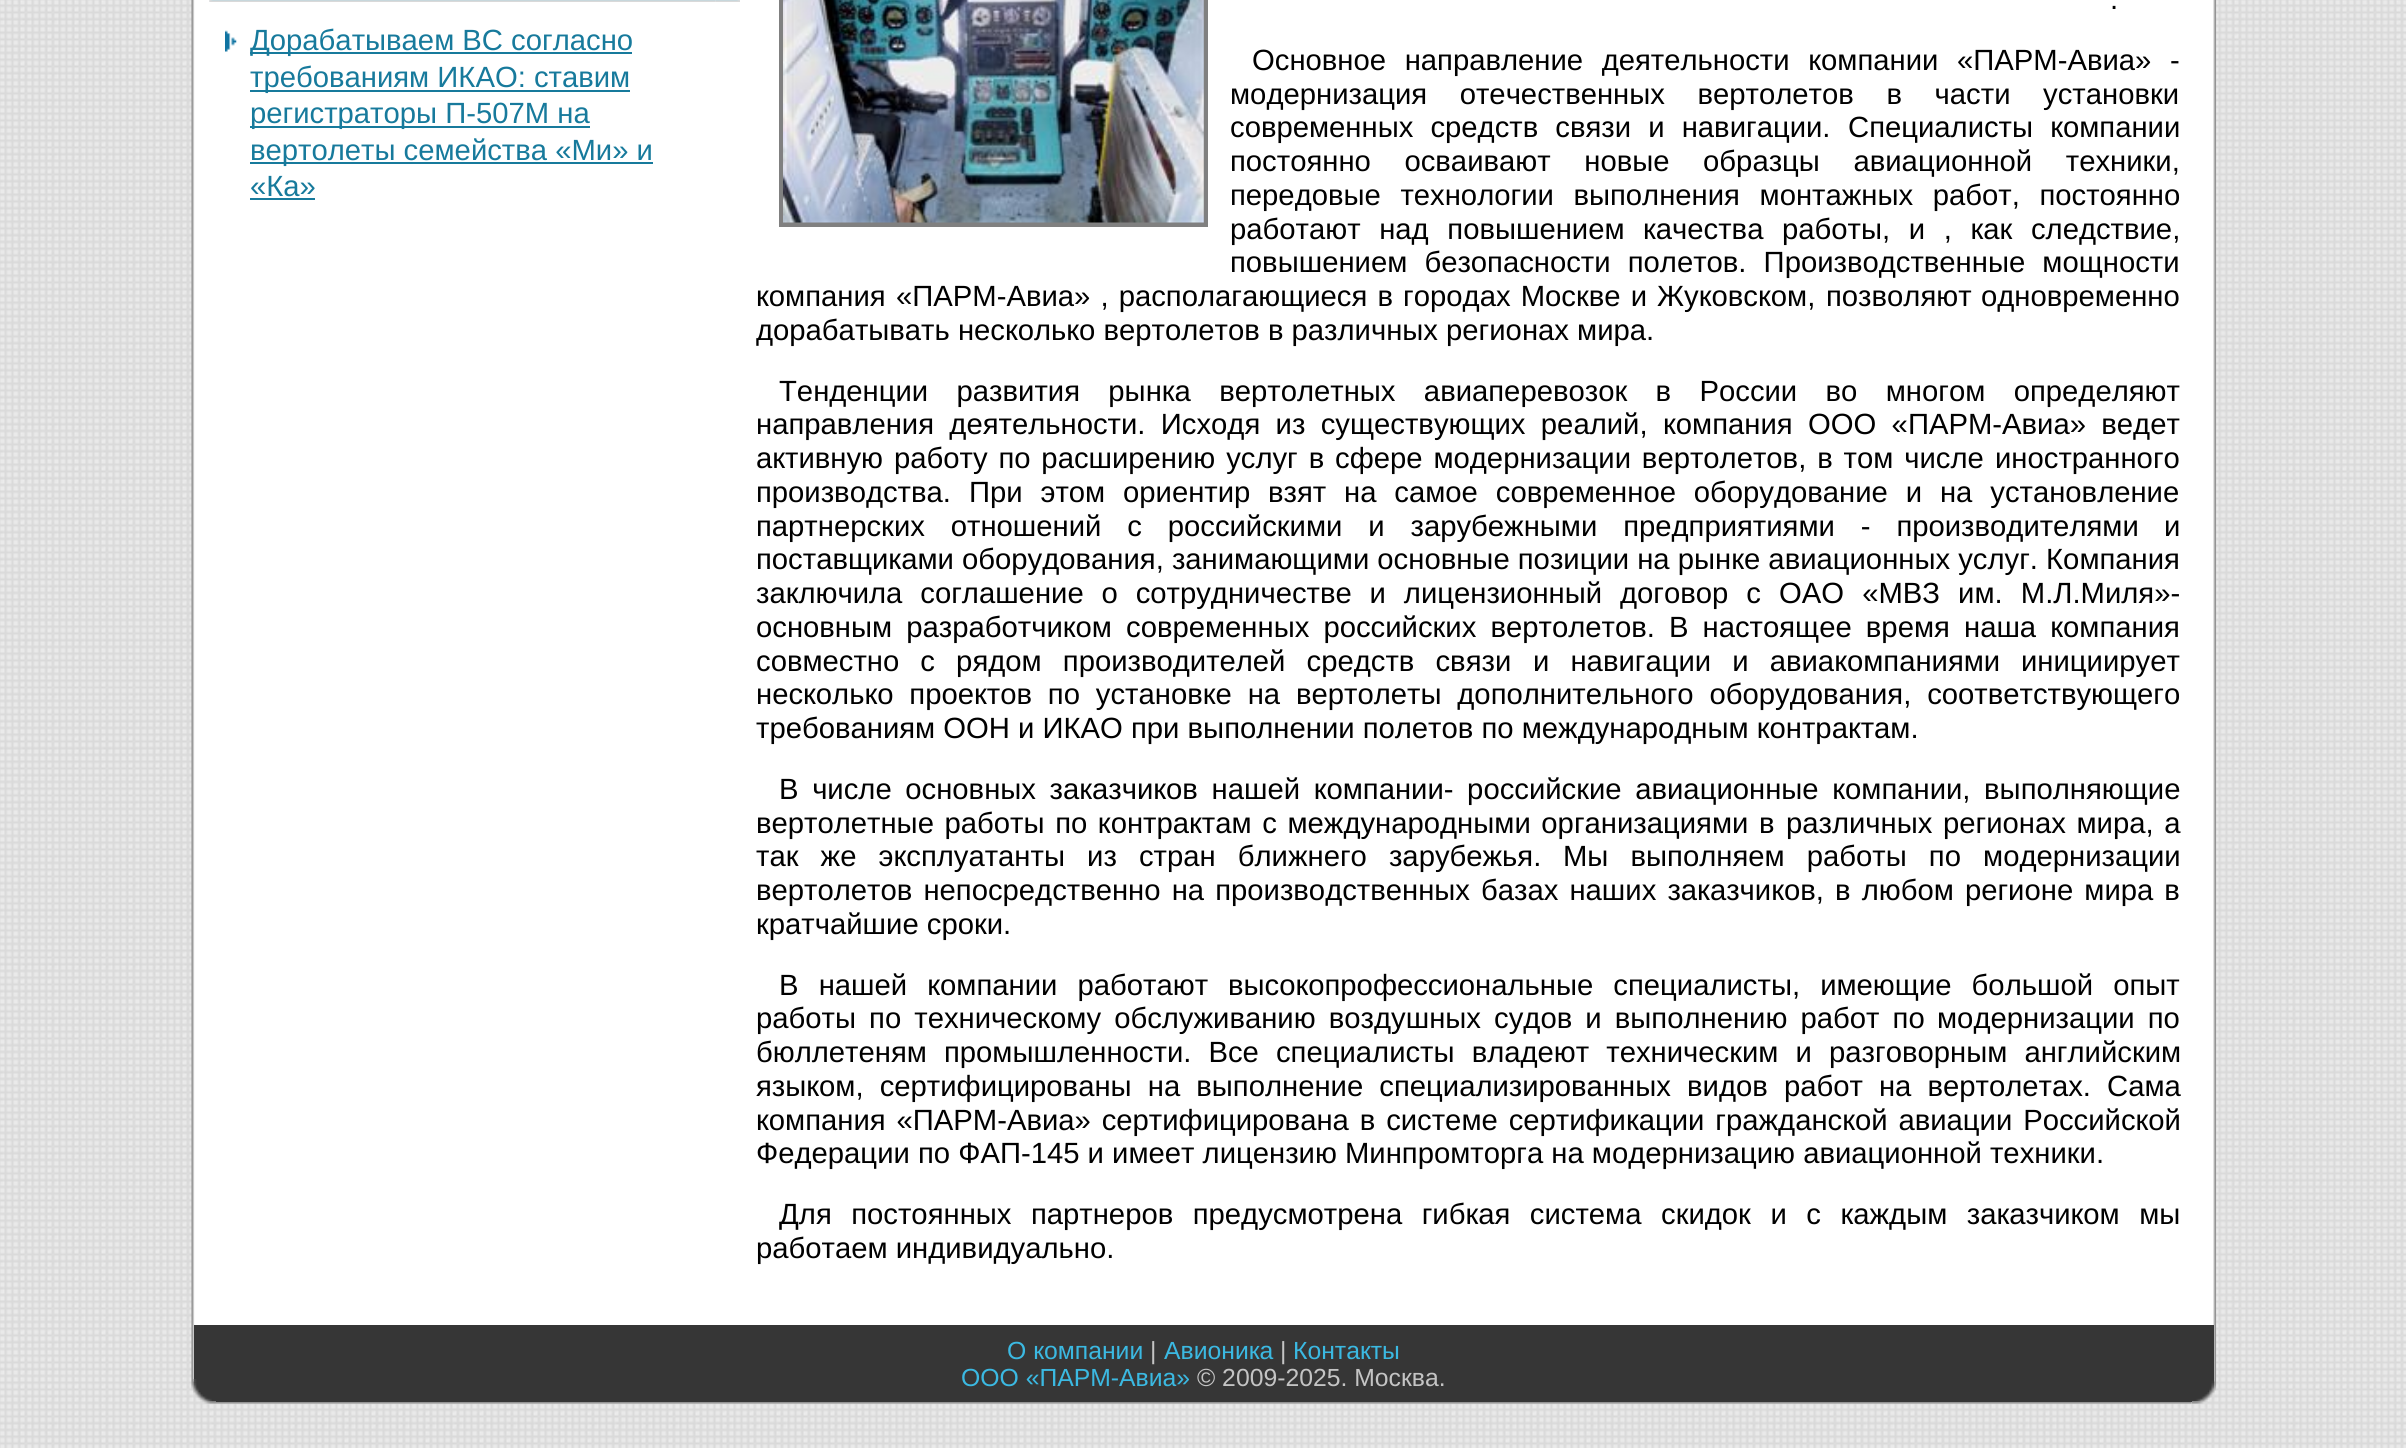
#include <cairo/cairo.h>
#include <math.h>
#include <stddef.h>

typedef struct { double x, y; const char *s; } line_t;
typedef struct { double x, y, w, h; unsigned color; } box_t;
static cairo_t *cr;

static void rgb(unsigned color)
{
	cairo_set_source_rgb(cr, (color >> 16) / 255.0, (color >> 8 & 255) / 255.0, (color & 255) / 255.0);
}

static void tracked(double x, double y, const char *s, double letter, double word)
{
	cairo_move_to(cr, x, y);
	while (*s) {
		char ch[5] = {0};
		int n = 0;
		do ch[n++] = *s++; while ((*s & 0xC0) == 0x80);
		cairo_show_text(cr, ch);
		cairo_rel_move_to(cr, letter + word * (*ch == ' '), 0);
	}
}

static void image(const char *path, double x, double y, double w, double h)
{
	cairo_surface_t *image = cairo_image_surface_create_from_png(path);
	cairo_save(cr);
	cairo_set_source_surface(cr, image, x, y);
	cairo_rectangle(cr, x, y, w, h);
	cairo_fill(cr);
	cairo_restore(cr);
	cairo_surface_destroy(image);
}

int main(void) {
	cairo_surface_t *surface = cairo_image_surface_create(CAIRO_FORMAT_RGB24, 2406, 1448);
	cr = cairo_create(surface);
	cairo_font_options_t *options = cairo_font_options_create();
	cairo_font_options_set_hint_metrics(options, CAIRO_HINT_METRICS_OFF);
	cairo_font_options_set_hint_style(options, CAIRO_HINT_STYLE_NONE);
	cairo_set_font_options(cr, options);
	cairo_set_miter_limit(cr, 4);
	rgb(0xffffff);
	cairo_paint(cr);
	image("img/1.png", 0, 0, 2406, 1448);
	image("img/2.png", 191, 0, 25, 1379);
	rgb(0xffffff);
	cairo_rectangle(cr, 216, 0, 1976, 1325);
	cairo_fill(cr);
	image("img/3.png", 2192, 0, 25, 1379);
	image("img/4.png", 209, 0, 507, 2);
	image("img/5.png", 715, 0, 25, 2);
	image("img/6.png", 225, 30, 12, 22);
	{
		static const box_t items[] = {
			{250, 52, 382, 2, 0x177a9c},
			{250, 90, 380, 2, 0x177a9c},
			{250, 126, 340, 2, 0x177a9c},
			{250, 162, 403, 2, 0x177a9c},
			{250, 198, 65, 2, 0x177a9c},
		};
		for (size_t i = 0; i < sizeof items / sizeof *items; i++) {
			rgb(items[i].color);
			cairo_rectangle(cr, items[i].x, items[i].y, items[i].w, items[i].h);
			cairo_fill(cr);
		}
	}
	cairo_rectangle(cr, 781.5, -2.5, 424, 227);
	rgb(0x808080);
	cairo_set_line_width(cr, 5);
	cairo_stroke(cr);
	image("img/7.png", 783, 0, 421, 223);
	rgb(0x363636);
	cairo_rectangle(cr, 194, 1325, 2020, 54);
	cairo_fill(cr);
	image("img/10.png", 191, 1379, 25, 25);
	image("img/8.png", 193, 1379, 23, 23);
	image("img/12.png", 2191, 1379, 26, 25);
	cairo_rectangle(cr, 216, 1379, 1976, 23);
	cairo_fill(cr);
	image("img/9.png", 2192, 1379, 22, 23);
	image("img/11.png", 216, 1402, 1976, 2);
	cairo_select_font_face(cr, "Liberation Sans", CAIRO_FONT_SLANT_NORMAL, CAIRO_FONT_WEIGHT_NORMAL);
	cairo_set_font_size(cr, 29.25);
	rgb(0x177a9c);
	{
		static const line_t items[] = {
			{250, 50, "Дорабатываем ВС согласно"},
			{250, 87, "требованиям ИКАО: ставим"},
			{250, 123, "регистраторы П-507М на"},
			{250, 160, "вертолеты семейства «Ми» и"},
			{250, 196, "«Ка»"},
		};
		for (size_t i = 0; i < sizeof items / sizeof *items; i++) {
			cairo_move_to(cr, items[i].x, items[i].y);
			cairo_show_text(cr, items[i].s);
		}
	}
	rgb(0x000000);
	cairo_move_to(cr, 2110, 9);
	cairo_show_text(cr, ".");
	tracked(1252, 70, "Основное направление деятельности компании «ПАРМ-Авиа» -", 0, 10.5);
	tracked(1230, 104, "модернизация отечественных вертолетов в части установки", 0, 24.5);
	tracked(1230, 137, "современных средств связи и навигации.", 0, 9);
	tracked(1848, 137, "Специалисты компании", 0, 9);
	tracked(1230, 171, "постоянно осваивают новые образцы авиационной техники,", 0, 25.5);
	tracked(1230, 205, "передовые технологии выполнения монтажных работ, постоянно", 0, 11.5);
	tracked(1230, 239, "работают над повышением", 0, 10.5);
	tracked(1643, 239, "качества работы, и , как следствие,", 0, 10.5);
	tracked(1230, 272, "повышением безопасности полетов. Производственные мощности", 0, 9);
	cairo_move_to(cr, 756, 306);
	cairo_show_text(cr, "компания");
	tracked(896, 306, "«ПАРМ-Авиа» , располагающиеся в городах Москве и Жуковском,", 0, 2);
	{
		static const line_t items[] = {
			{1826, 306, "позволяют"},
			{1981, 306, "одновременно"},
			{756, 340, "дорабатывать несколько вертолетов в различных регионах мира."},
		};
		for (size_t i = 0; i < sizeof items / sizeof *items; i++) {
			cairo_move_to(cr, items[i].x, items[i].y);
			cairo_show_text(cr, items[i].s);
		}
	}
	tracked(779, 401, "Тенденции развития рынка вертолетных авиаперевозок в России во многом определяют", 0, 20.25);
	tracked(756, 434, "направления деятельности. Исходя из существующих реалий,", 0, 7.25);
	tracked(1663, 434, "компания ООО «ПАРМ-Авиа» ведет", 0, 7.25);
	tracked(756, 468, "активную работу по расширению услуг в сфере модернизации вертолетов, в том числе", 0, 2.75);
	cairo_move_to(cr, 1995, 468);
	cairo_show_text(cr, "иностранного");
	cairo_move_to(cr, 756, 502);
	cairo_show_text(cr, "производства.");
	tracked(969, 502, "При этом ориентир", 0, 9.75);
	tracked(1268, 502, "взят на самое современное оборудование и на установление", 0, 9.75);
	tracked(756, 536, "партнерских отношений с российскими и зарубежными предприятиями - производителями", 0, 17.75);
	cairo_move_to(cr, 2164, 536);
	cairo_show_text(cr, "и");
	cairo_move_to(cr, 756, 569);
	cairo_show_text(cr, "поставщиками оборудования, занимающими основные позиции на рынке авиационных услуг. Компания");
	tracked(756, 603, "заключила соглашение о сотрудничестве и лицензионный договор с", 0, 9.75);
	tracked(1779, 603, "ОАО «МВЗ им. М.Л.Миля»-", 0, 10);
	tracked(756, 637, "основным разработчиком современных российских вертолетов. В настоящее время наша компания", 0, 6);
	tracked(756, 671, "совместно с рядом производителей средств связи", 0, 13);
	tracked(1533, 671, "и навигации и авиакомпаниями", 0, 13);
	cairo_move_to(cr, 2021, 671);
	cairo_show_text(cr, "инициирует");
	tracked(756, 704, "несколько проектов по установке на вертолеты дополнительного оборудования, соответствующего", 0, 7.75);
	cairo_move_to(cr, 756, 738);
	cairo_show_text(cr, "требованиям ООН и ИКАО при выполнении полетов по международным контрактам.");
	tracked(779, 799, "В числе основных заказчиков нашей компании- российские авиационные компании, выполняющие", 0, 5.5);
	tracked(756, 833, "вертолетные работы по контрактам с международными организациями в", 0, 2.5);
	tracked(1786, 833, "различных регионах мира, а", 0, 2.5);
	tracked(756, 866, "так же эксплуатанты из стран ближнего зарубежья.", 0, 14);
	tracked(1563, 866, "Мы выполняем работы по модернизации", 0, 14);
	tracked(756, 900, "вертолетов непосредственно на производственных", 0, 3);
	tracked(1481, 900, "базах наших заказчиков, в любом регионе мира в", 0, 3);
	cairo_move_to(cr, 756, 934);
	cairo_show_text(cr, "кратчайшие сроки.");
	tracked(779, 995, "В нашей компании работают", 0, 12);
	tracked(1228, 995, "высокопрофессиональные специалисты, имеющие большой опыт", 0, 12);
	tracked(756, 1028, "работы по техническому обслуживанию воздушных судов и выполнению работ по", 0, 5);
	tracked(1937, 1028, "модернизации по", 0, 5);
	tracked(756, 1062, "бюллетеням промышленности. Все специалисты владеют техническим и разговорным английским", 0, 9);
	tracked(756, 1096, "языком, сертифицированы на выполнение специализированных", 0, 8);
	tracked(1687, 1096, "видов работ на вертолетах. Сама", 0, 8);
	tracked(756, 1130, "компания «ПАРМ-Авиа» сертифицирована в системе сертификации гражданской авиации Российской", 0, 2.75);
	cairo_move_to(cr, 756, 1163);
	cairo_show_text(cr, "Федерации по ФАП-145 и имеет лицензию Минпромторга на модернизацию авиационной техники.");
	tracked(779, 1224, "Для постоянных партнеров предусмотрена гибкая система скидок и с каждым заказчиком мы", 0, 11.4);
	cairo_move_to(cr, 756, 1258);
	cairo_show_text(cr, "работаем индивидуально.");
	cairo_set_font_size(cr, 24.75);
	rgb(0x3bb9e2);
	cairo_move_to(cr, 1007, 1359);
	cairo_show_text(cr, "О компании");
	rgb(0xc4c4c4);
	cairo_move_to(cr, 1150, 1359);
	cairo_show_text(cr, "|");
	rgb(0x3bb9e2);
	cairo_move_to(cr, 1164, 1359);
	cairo_show_text(cr, "Авионика");
	rgb(0xc4c4c4);
	cairo_move_to(cr, 1280, 1359);
	cairo_show_text(cr, "|");
	rgb(0x3bb9e2);
	cairo_move_to(cr, 1293, 1359);
	cairo_show_text(cr, "Контакты");
	cairo_move_to(cr, 961, 1386);
	cairo_show_text(cr, "ООО «ПАРМ-Авиа»");
	rgb(0xc4c4c4);
	cairo_move_to(cr, 1197, 1386);
	cairo_show_text(cr, "© 2009-2025. Москва.");
	cairo_surface_write_to_png(surface, "page.png");
	cairo_font_options_destroy(options);
	cairo_destroy(cr);
	cairo_surface_destroy(surface);
	return 0;
}
